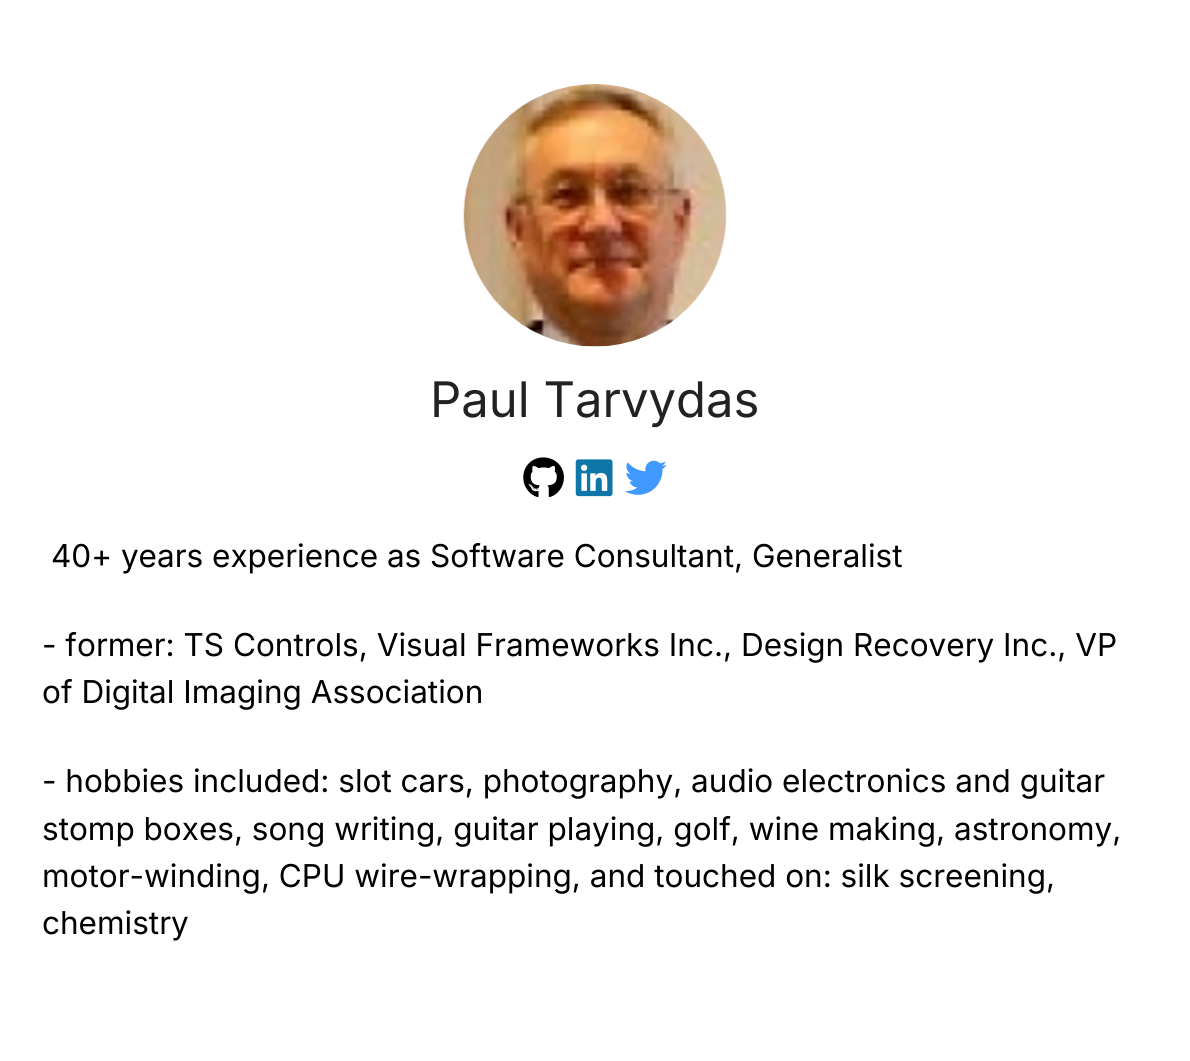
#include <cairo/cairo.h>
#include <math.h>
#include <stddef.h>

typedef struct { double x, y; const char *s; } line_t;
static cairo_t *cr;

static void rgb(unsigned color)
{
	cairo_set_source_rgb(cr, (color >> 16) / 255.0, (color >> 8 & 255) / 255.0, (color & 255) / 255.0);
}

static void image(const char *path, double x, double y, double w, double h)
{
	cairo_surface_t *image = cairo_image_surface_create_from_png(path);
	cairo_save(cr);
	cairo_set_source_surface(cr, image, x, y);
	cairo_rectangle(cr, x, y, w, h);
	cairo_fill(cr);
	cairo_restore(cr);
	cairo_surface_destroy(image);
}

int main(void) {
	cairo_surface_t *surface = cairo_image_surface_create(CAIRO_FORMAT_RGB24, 1190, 1061);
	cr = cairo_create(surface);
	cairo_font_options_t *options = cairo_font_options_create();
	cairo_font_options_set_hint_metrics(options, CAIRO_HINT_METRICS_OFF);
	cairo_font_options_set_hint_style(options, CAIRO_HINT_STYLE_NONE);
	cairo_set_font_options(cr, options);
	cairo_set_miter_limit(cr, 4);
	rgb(0xffffff);
	cairo_paint(cr);
	image("img/1.png", 463, 84, 264, 263);
	image("img/2.png", 523, 457, 41, 41);
	image("img/3.png", 575, 459, 38, 38);
	image("img/4.png", 625, 460, 42, 35);
	cairo_select_font_face(cr, "Inter", CAIRO_FONT_SLANT_NORMAL, CAIRO_FONT_WEIGHT_NORMAL);
	cairo_set_font_size(cr, 49);
	rgb(0x222222);
	cairo_move_to(cr, 430, 417);
	cairo_show_text(cr, "Paul Tarvydas");
	cairo_set_font_size(cr, 31.5);
	rgb(0x000000);
	{
		static const line_t items[] = {
			{51, 567, "40+ years experience as Software Consultant, Generalist"},
			{42, 656, "- former: TS Controls, Visual Frameworks Inc., Design Recovery Inc., VP"},
			{42, 703, "of Digital Imaging Association"},
			{42, 792, "- hobbies included: slot cars, photography, audio electronics and guitar"},
			{42, 840, "stomp boxes, song writing, guitar playing, golf, wine making, astronomy,"},
			{42, 887, "motor-winding, CPU wire-wrapping, and touched on: silk screening,"},
			{42, 934, "chemistry"},
		};
		for (size_t i = 0; i < sizeof items / sizeof *items; i++) {
			cairo_move_to(cr, items[i].x, items[i].y);
			cairo_show_text(cr, items[i].s);
		}
	}
	cairo_surface_write_to_png(surface, "page.png");
	cairo_font_options_destroy(options);
	cairo_destroy(cr);
	cairo_surface_destroy(surface);
	return 0;
}
